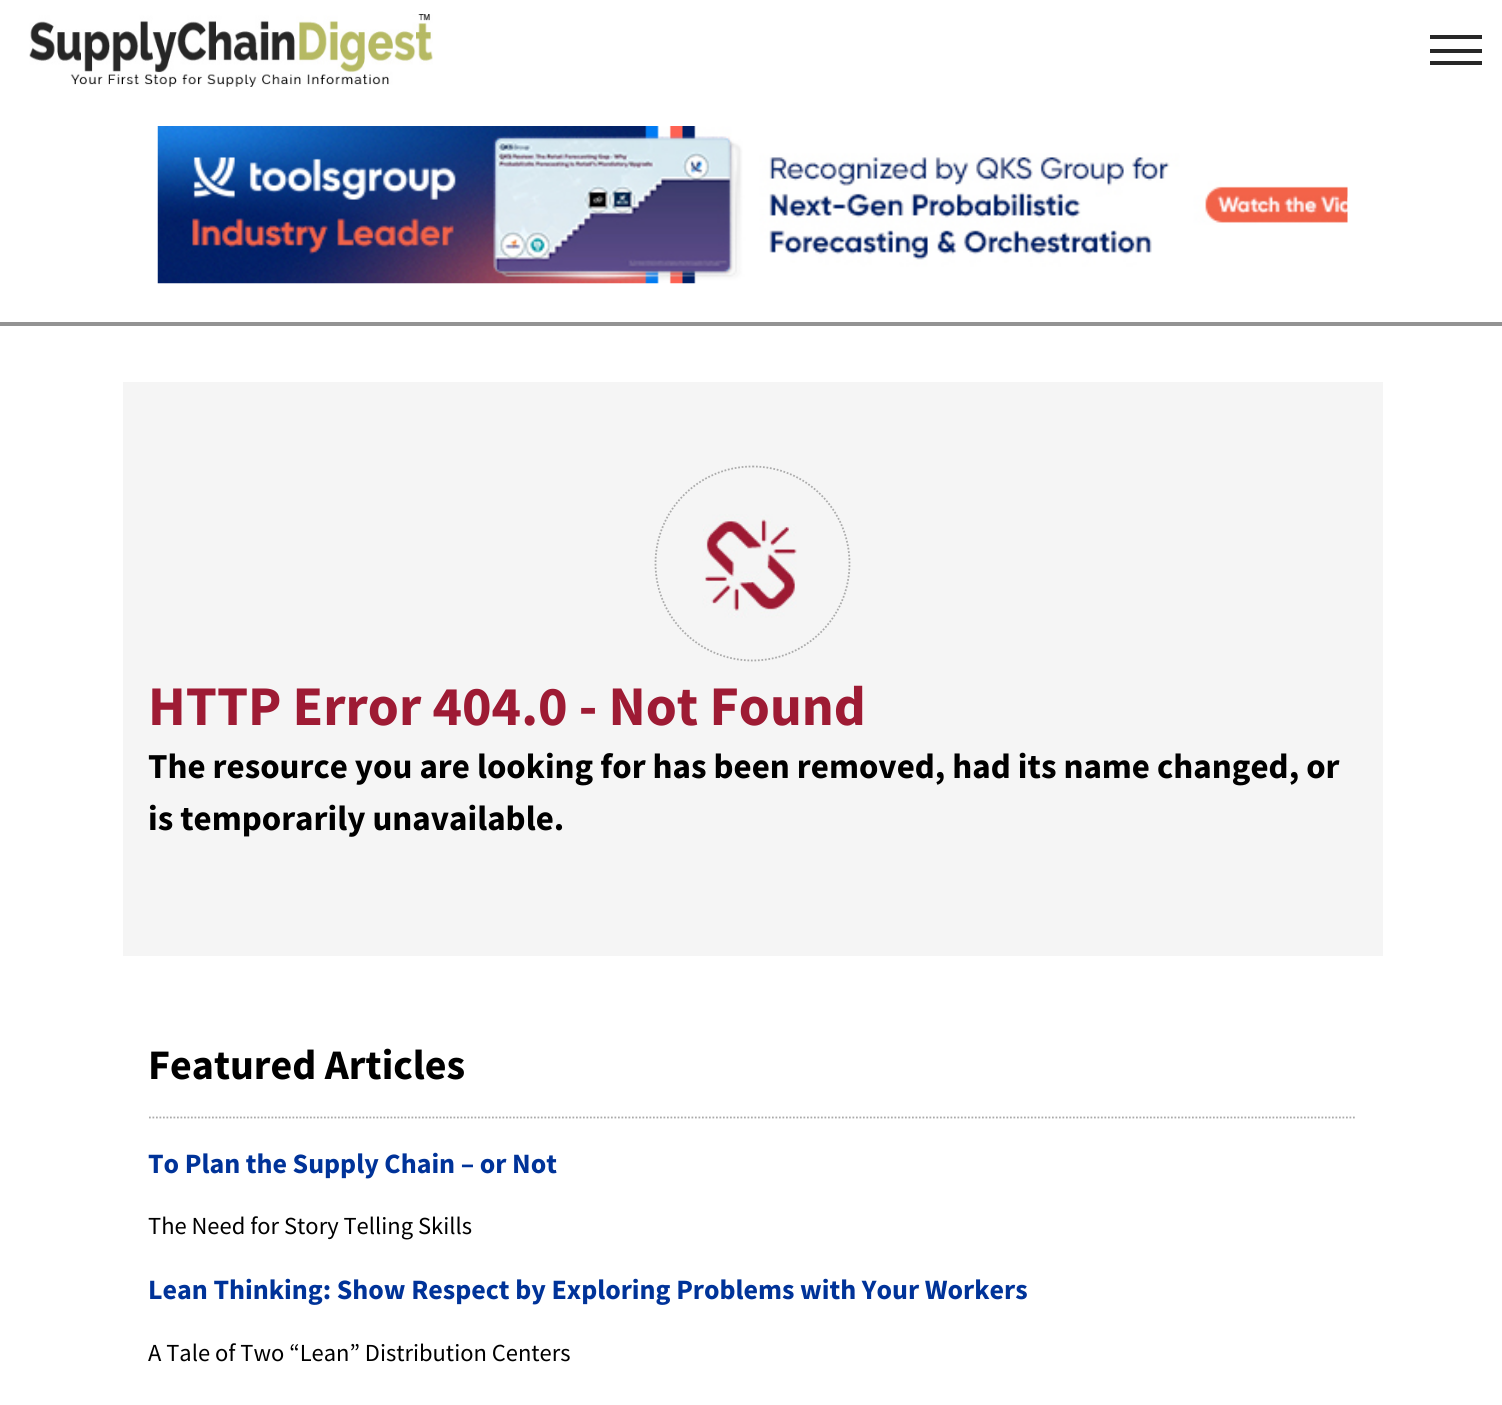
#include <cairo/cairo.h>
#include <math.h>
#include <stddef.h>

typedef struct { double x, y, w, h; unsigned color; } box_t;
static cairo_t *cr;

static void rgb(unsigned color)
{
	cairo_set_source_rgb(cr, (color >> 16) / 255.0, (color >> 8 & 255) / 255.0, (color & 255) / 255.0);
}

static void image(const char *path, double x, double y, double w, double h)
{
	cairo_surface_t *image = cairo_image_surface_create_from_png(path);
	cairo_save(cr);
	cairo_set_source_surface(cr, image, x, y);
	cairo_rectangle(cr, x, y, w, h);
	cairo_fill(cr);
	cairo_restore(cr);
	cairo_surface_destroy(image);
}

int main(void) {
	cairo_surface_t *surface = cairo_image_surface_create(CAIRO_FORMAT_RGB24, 1502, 1405);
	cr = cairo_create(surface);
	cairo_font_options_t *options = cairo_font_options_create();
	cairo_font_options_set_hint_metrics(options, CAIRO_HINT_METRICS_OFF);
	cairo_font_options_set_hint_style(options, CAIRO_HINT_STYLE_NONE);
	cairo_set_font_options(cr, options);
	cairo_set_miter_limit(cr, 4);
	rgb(0xffffff);
	cairo_paint(cr);
	image("img/1.png", 29, 14, 404, 73);
	{
		static const box_t items[] = {
			{1430, 35, 52, 4, 0x272727},
			{1430, 49, 52, 4, 0x272727},
			{1430, 61, 52, 4, 0x272727},
		};
		for (size_t i = 0; i < sizeof items / sizeof *items; i++) {
			rgb(items[i].color);
			cairo_rectangle(cr, items[i].x, items[i].y, items[i].w, items[i].h);
			cairo_fill(cr);
		}
	}
	image("img/2.png", 157, 126, 1191, 158);
	rgb(0x939393);
	cairo_rectangle(cr, 0, 322, 1502, 4);
	cairo_fill(cr);
	rgb(0xf5f5f5);
	cairo_rectangle(cr, 123, 382, 1260, 574);
	cairo_fill(cr);
	image("img/3.png", 702, 514, 95, 104);
	cairo_new_path(cr);
	cairo_move_to(cr, 752.5, 466.5);
	cairo_curve_to(cr, 806, 466.5, 849.5, 510, 849.5, 563.5);
	cairo_curve_to(cr, 849.5, 617, 806, 660.5, 752.5, 660.5);
	cairo_curve_to(cr, 699, 660.5, 655.5, 617, 655.5, 563.5);
	cairo_curve_to(cr, 655.5, 510, 699, 466.5, 752.5, 466.5);
	cairo_close_path(cr);
	rgb(0xaaaaaa);
	cairo_set_line_width(cr, 1.8);
	cairo_set_dash(cr, (double[]){1.75, 1.75}, 2, 0);
	cairo_stroke(cr);
	cairo_new_path(cr);
	cairo_move_to(cr, 149, 1117.5);
	cairo_line_to(cr, 1356, 1117.5);
	cairo_stroke(cr);
	cairo_select_font_face(cr, "Source Sans Pro", CAIRO_FONT_SLANT_NORMAL, CAIRO_FONT_WEIGHT_BOLD);
	cairo_set_font_size(cr, 56);
	rgb(0x9e1b34);
	cairo_move_to(cr, 148, 725);
	cairo_show_text(cr, "HTTP Error 404.0 - Not Found");
	cairo_set_font_size(cr, 35);
	rgb(0x000000);
	cairo_move_to(cr, 148, 778);
	cairo_show_text(cr, "The resource you are looking for has been removed, had its name changed, or");
	cairo_move_to(cr, 148, 830);
	cairo_show_text(cr, "is temporarily unavailable.");
	cairo_set_font_size(cr, 42);
	cairo_move_to(cr, 148, 1079);
	cairo_show_text(cr, "Featured Articles");
	cairo_set_font_size(cr, 28);
	rgb(0x003399);
	cairo_move_to(cr, 148, 1173);
	cairo_show_text(cr, "To Plan the Supply Chain – or Not");
	cairo_select_font_face(cr, "Source Sans Pro", CAIRO_FONT_SLANT_NORMAL, CAIRO_FONT_WEIGHT_NORMAL);
	cairo_set_font_size(cr, 24.5);
	rgb(0x000000);
	cairo_move_to(cr, 148, 1234);
	cairo_show_text(cr, "The Need for Story Telling Skills");
	cairo_select_font_face(cr, "Source Sans Pro", CAIRO_FONT_SLANT_NORMAL, CAIRO_FONT_WEIGHT_BOLD);
	cairo_set_font_size(cr, 28);
	rgb(0x003399);
	cairo_move_to(cr, 148, 1299);
	cairo_show_text(cr, "Lean Thinking: Show Respect by Exploring Problems with Your Workers");
	cairo_select_font_face(cr, "Source Sans Pro", CAIRO_FONT_SLANT_NORMAL, CAIRO_FONT_WEIGHT_NORMAL);
	cairo_set_font_size(cr, 24.5);
	rgb(0x000000);
	cairo_move_to(cr, 148, 1361);
	cairo_show_text(cr, "A Tale of Two “Lean” Distribution Centers");
	cairo_surface_write_to_png(surface, "page.png");
	cairo_font_options_destroy(options);
	cairo_destroy(cr);
	cairo_surface_destroy(surface);
	return 0;
}
